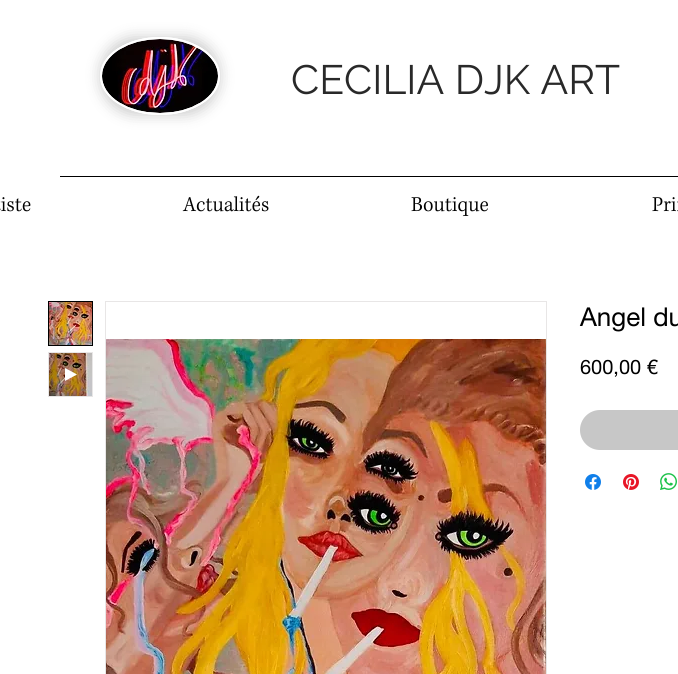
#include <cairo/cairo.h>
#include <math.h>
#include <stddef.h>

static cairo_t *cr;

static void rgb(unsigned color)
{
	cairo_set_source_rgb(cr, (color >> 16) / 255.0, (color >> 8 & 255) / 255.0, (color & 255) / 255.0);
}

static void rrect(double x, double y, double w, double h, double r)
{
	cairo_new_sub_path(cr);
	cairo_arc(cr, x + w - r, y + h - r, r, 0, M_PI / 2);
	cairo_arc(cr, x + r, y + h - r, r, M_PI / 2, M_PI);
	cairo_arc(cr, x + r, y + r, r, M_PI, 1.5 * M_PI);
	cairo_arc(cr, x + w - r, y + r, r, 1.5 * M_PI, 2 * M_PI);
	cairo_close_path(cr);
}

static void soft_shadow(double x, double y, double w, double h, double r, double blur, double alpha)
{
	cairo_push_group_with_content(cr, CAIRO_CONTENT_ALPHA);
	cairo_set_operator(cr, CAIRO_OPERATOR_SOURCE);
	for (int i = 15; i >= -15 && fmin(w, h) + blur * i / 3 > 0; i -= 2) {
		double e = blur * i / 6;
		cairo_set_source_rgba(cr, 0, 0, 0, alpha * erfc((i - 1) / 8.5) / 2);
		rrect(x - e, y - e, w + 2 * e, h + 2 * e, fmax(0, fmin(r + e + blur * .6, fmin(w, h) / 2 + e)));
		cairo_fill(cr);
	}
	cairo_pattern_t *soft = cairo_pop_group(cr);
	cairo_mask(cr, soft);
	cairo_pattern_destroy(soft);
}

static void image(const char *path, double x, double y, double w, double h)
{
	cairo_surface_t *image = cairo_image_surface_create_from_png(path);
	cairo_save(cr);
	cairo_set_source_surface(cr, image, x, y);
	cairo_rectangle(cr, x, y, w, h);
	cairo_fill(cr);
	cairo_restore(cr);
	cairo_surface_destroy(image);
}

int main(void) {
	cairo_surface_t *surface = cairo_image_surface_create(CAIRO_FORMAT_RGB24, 678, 674);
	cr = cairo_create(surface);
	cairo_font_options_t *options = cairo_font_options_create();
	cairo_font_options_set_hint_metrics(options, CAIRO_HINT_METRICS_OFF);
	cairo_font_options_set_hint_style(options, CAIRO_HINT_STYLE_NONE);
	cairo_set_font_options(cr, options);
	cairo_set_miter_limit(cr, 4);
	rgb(0xffffff);
	cairo_paint(cr);
	cairo_save(cr);
	cairo_set_fill_rule(cr, CAIRO_FILL_RULE_EVEN_ODD);
	cairo_new_path(cr);
	cairo_move_to(cr, 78, 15);
	cairo_line_to(cr, 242, 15);
	cairo_line_to(cr, 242, 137);
	cairo_line_to(cr, 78, 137);
	cairo_close_path(cr);
	cairo_move_to(cr, 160, 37);
	cairo_curve_to(cr, 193, 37, 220, 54.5, 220, 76);
	cairo_curve_to(cr, 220, 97.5, 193, 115, 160, 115);
	cairo_curve_to(cr, 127, 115, 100, 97.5, 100, 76);
	cairo_curve_to(cr, 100, 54.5, 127, 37, 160, 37);
	cairo_close_path(cr);
	cairo_clip(cr);
	rgb(0x000000);
	soft_shadow(100, 37, 120, 78, 39, 7, 0.2);
	cairo_restore(cr);
	cairo_set_source_rgba(cr, 1, 1, 1, 0.48);
	cairo_new_path(cr);
	cairo_move_to(cr, 160, 37);
	cairo_curve_to(cr, 193, 37, 220, 54.5, 220, 76);
	cairo_curve_to(cr, 220, 97.5, 193, 115, 160, 115);
	cairo_curve_to(cr, 127, 115, 100, 97.5, 100, 76);
	cairo_curve_to(cr, 100, 54.5, 127, 37, 160, 37);
	cairo_close_path(cr);
	cairo_fill(cr);
	cairo_new_path(cr);
	cairo_move_to(cr, 160, 38);
	cairo_curve_to(cr, 192.5, 38, 219, 55, 219, 76);
	cairo_curve_to(cr, 219, 97, 192.5, 114, 160, 114);
	cairo_curve_to(cr, 127.5, 114, 101, 97, 101, 76);
	cairo_curve_to(cr, 101, 55, 127.5, 38, 160, 38);
	cairo_close_path(cr);
	cairo_stroke(cr);
	image("img/1.png", 102, 39, 116, 74);
	rgb(0x000000);
	cairo_rectangle(cr, 60, 176, 618, 1);
	cairo_fill(cr);
	image("img/2.png", 0, 197, 31, 15);
	image("img/3.png", 182, 195, 87, 17);
	image("img/4.png", 411, 197, 77, 20);
	image("img/5.png", 652, 197, 26, 15);
	cairo_rectangle(cr, 48.5, 301.5, 44, 44);
	cairo_set_line_width(cr, 1);
	cairo_stroke(cr);
	image("img/6.png", 49, 302, 43, 43);
	rgb(0xe8e6e6);
	cairo_rectangle(cr, 48, 352, 45, 45);
	cairo_fill(cr);
	image("img/7.png", 49, 353, 43, 43);
	rgb(0xffffff);
	cairo_new_path(cr);
	cairo_move_to(cr, 65, 368);
	cairo_line_to(cr, 65, 381);
	cairo_line_to(cr, 77, 374.5);
	cairo_close_path(cr);
	cairo_fill(cr);
	cairo_rectangle(cr, 105.5, 301.5, 441, 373);
	rgb(0xe8e6e6);
	cairo_stroke(cr);
	image("img/8.png", 106, 339, 440, 335);
	rgb(0xc7c7c7);
	rrect(580, 410, 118, 40, 20);
	cairo_fill(cr);
	image("img/9.png", 585, 474, 16, 16);
	image("img/10.png", 623, 474, 16, 16);
	image("img/11.png", 660, 473, 17, 17);
	cairo_select_font_face(cr, "Raleway", CAIRO_FONT_SLANT_NORMAL, CAIRO_FONT_WEIGHT_NORMAL);
	cairo_set_font_size(cr, 41);
	rgb(0x292929);
	cairo_move_to(cr, 291, 94);
	cairo_show_text(cr, "CECILIA DJK ART");
	cairo_select_font_face(cr, "helvetica neue", CAIRO_FONT_SLANT_NORMAL, CAIRO_FONT_WEIGHT_NORMAL);
	cairo_set_font_size(cr, 26);
	rgb(0x000000);
	cairo_move_to(cr, 580, 326);
	cairo_show_text(cr, "Angel du");
	cairo_set_font_size(cr, 20);
	cairo_move_to(cr, 580, 374);
	cairo_show_text(cr, "600,00 €");
	cairo_surface_write_to_png(surface, "page.png");
	cairo_font_options_destroy(options);
	cairo_destroy(cr);
	cairo_surface_destroy(surface);
	return 0;
}
